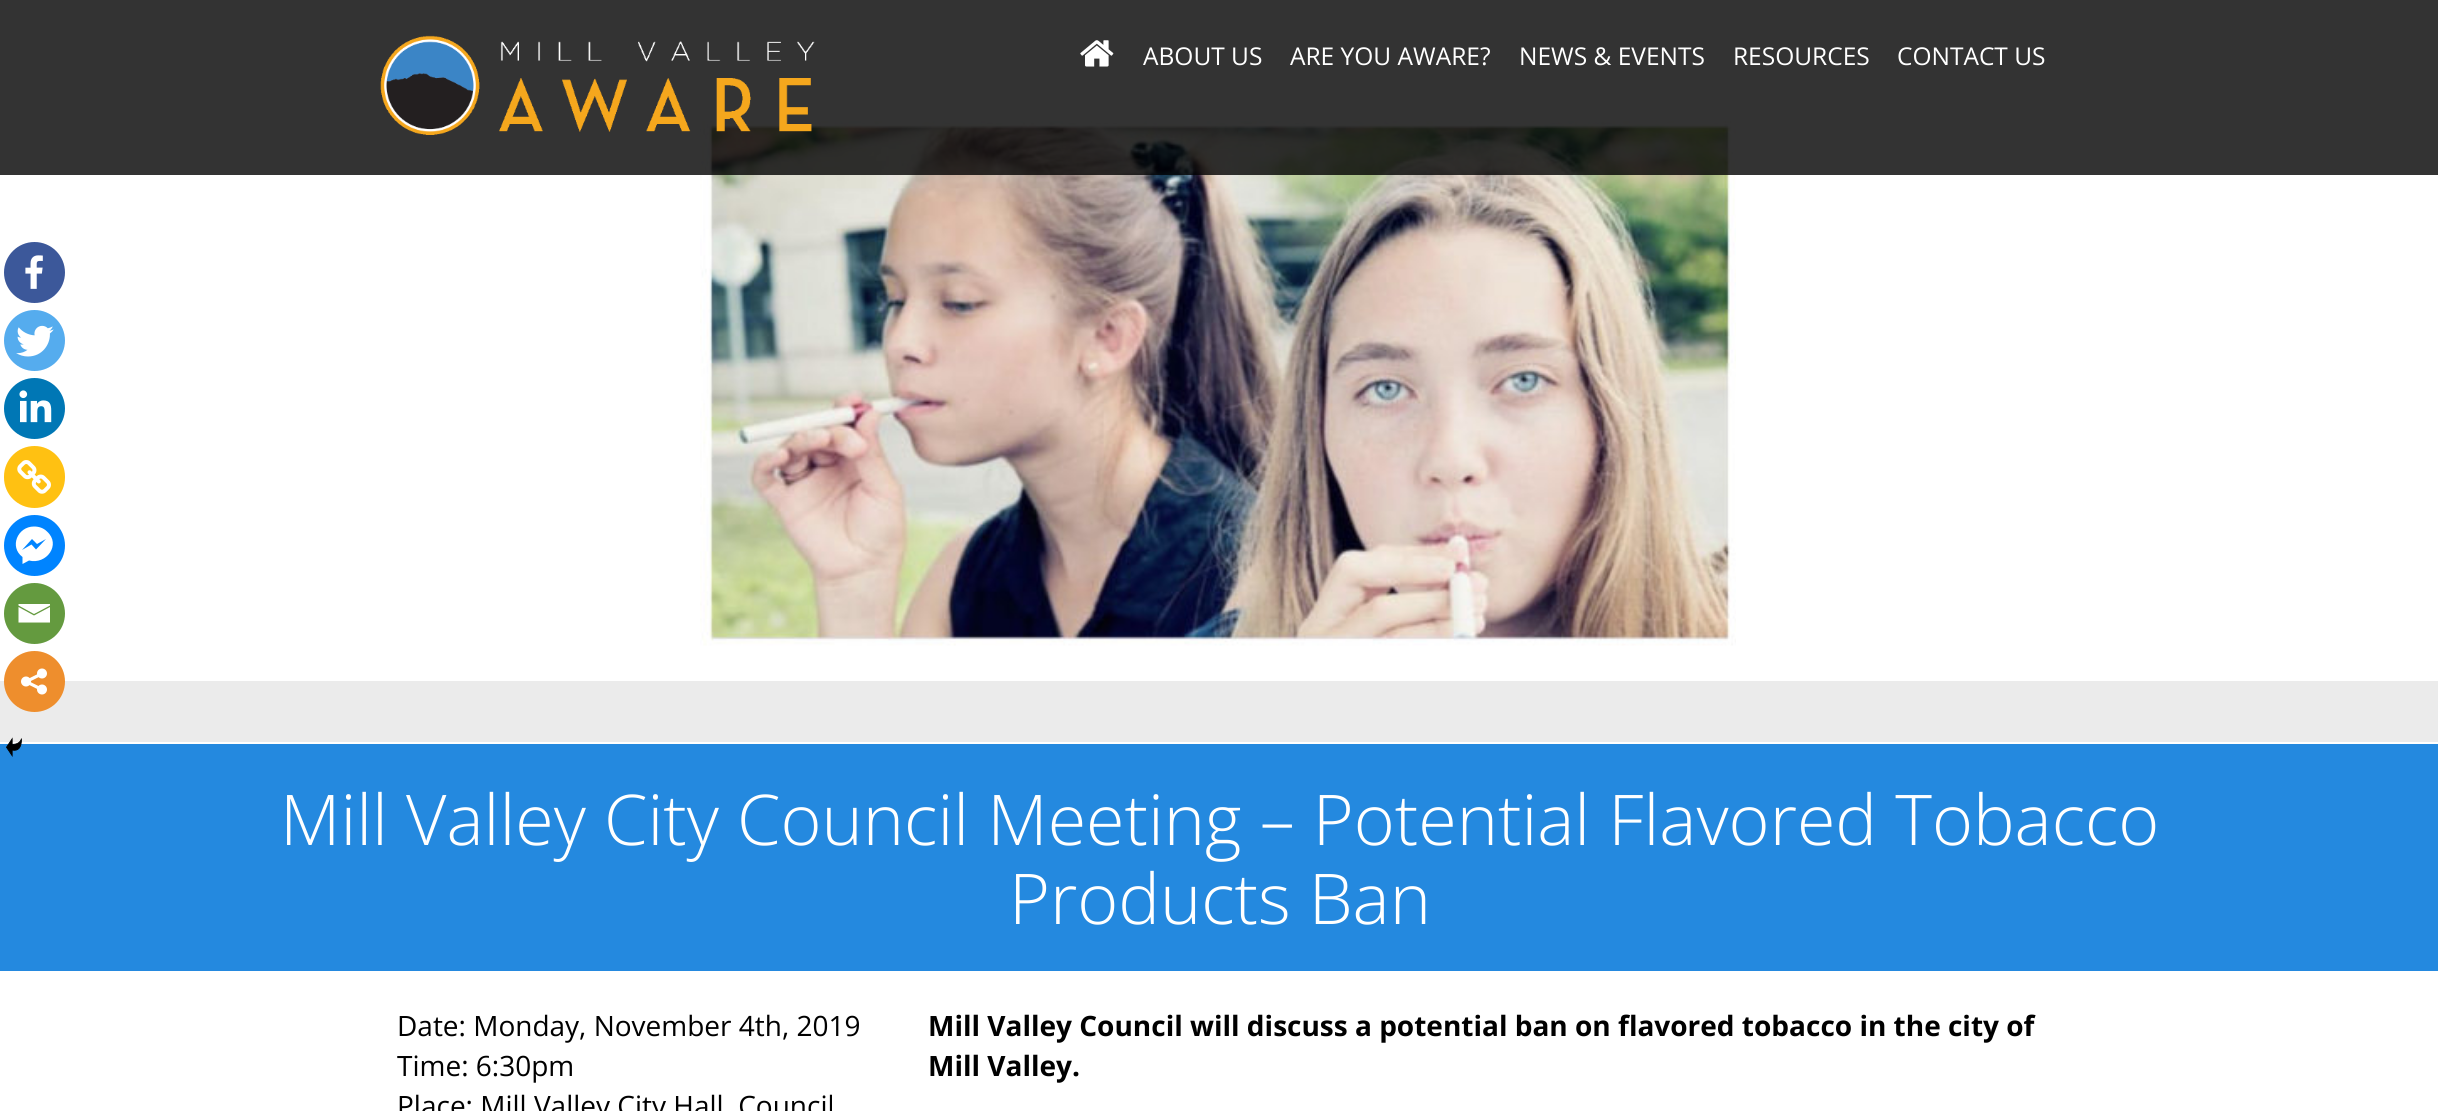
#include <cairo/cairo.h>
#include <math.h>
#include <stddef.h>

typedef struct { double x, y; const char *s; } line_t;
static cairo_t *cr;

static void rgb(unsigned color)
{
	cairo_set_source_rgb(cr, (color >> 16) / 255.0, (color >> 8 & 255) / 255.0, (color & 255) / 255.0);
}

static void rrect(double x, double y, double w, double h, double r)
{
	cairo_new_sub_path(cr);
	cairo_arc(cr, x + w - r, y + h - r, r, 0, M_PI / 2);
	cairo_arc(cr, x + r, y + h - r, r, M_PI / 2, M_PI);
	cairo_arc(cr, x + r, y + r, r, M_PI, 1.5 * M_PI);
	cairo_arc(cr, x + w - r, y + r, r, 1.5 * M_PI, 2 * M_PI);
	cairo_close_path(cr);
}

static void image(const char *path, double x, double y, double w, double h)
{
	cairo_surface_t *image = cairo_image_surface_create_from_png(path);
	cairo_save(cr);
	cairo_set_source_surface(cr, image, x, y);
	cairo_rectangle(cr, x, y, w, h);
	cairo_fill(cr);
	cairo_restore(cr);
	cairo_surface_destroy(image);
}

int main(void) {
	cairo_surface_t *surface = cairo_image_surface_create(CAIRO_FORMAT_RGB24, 2438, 1111);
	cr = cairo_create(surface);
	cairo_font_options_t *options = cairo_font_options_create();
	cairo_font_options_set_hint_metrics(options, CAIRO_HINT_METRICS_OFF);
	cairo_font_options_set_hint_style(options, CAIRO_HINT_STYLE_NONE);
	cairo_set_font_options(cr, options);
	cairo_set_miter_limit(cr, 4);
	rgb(0xffffff);
	cairo_paint(cr);
	image("img/3.png", 700, 121, 1036, 525);
	cairo_set_source_rgba(cr, 0, 0, 0, 0.8);
	cairo_rectangle(cr, 0, 0, 2438, 175);
	cairo_fill(cr);
	image("img/1.png", 380, 35, 435, 100);
	image("img/2.png", 1080, 40, 34, 27);
	rgb(0xebebeb);
	cairo_rectangle(cr, 0, 681, 2438, 61);
	cairo_fill(cr);
	rgb(0x2489df);
	cairo_rectangle(cr, 0, 744, 2438, 227);
	cairo_fill(cr);
	rgb(0x3c589a);
	cairo_arc(cr, 34.5, 272.5, 30.5, 0, 2 * M_PI);
	cairo_fill(cr);
	image("img/4.png", 25, 255, 18, 34);
	rgb(0x55acee);
	cairo_arc(cr, 34.5, 340.5, 30.5, 0, 2 * M_PI);
	cairo_fill(cr);
	image("img/5.png", 16, 325, 38, 32);
	rgb(0x0077b5);
	cairo_arc(cr, 34.5, 408.5, 30.5, 0, 2 * M_PI);
	cairo_fill(cr);
	image("img/6.png", 19, 390, 33, 33);
	rgb(0xffc112);
	rrect(4, 446, 61, 62, 30.5);
	cairo_fill(cr);
	image("img/7.png", 17, 460, 34, 34);
	rgb(0x0084ff);
	cairo_arc(cr, 34.5, 545.5, 30.5, 0, 2 * M_PI);
	cairo_fill(cr);
	rgb(0xffffff);
	cairo_new_path(cr);
	cairo_move_to(cr, 34, 526.5);
	cairo_curve_to(cr, 17.5, 526.5, 9, 547, 22.5, 557);
	cairo_line_to(cr, 22.5, 564);
	cairo_line_to(cr, 29, 560.5);
	cairo_curve_to(cr, 46.5, 565, 61.5, 544.5, 47, 531.5);
	cairo_curve_to(cr, 43.5, 528, 39, 526.5, 34, 526.5);
	cairo_close_path(cr);
	cairo_move_to(cr, 36, 549.5);
	cairo_line_to(cr, 31.5, 544.5);
	cairo_line_to(cr, 22, 550);
	cairo_line_to(cr, 32, 539);
	cairo_line_to(cr, 37, 544);
	cairo_line_to(cr, 46, 539);
	cairo_close_path(cr);
	cairo_fill(cr);
	rgb(0x649a3f);
	cairo_arc(cr, 34.5, 613.5, 30.5, 0, 2 * M_PI);
	cairo_fill(cr);
	rgb(0xffffff);
	cairo_new_path(cr);
	cairo_move_to(cr, 17, 604);
	cairo_line_to(cr, 50, 604);
	cairo_line_to(cr, 50, 605.5);
	cairo_line_to(cr, 34, 614);
	cairo_line_to(cr, 18.5, 605.5);
	cairo_line_to(cr, 18.5, 604);
	cairo_move_to(cr, 18.5, 607);
	cairo_line_to(cr, 34, 615.5);
	cairo_line_to(cr, 50, 607);
	cairo_line_to(cr, 50, 622.5);
	cairo_line_to(cr, 18.5, 622.5);
	cairo_line_to(cr, 18.5, 607);
	cairo_fill(cr);
	rgb(0xee8e2d);
	cairo_arc(cr, 34.5, 681.5, 30.5, 0, 2 * M_PI);
	cairo_fill(cr);
	image("img/8.png", 21, 668, 26, 27);
	image("img/9.png", 6, 737, 16, 20);
	cairo_select_font_face(cr, "Open Sans", CAIRO_FONT_SLANT_NORMAL, CAIRO_FONT_WEIGHT_NORMAL);
	cairo_set_font_size(cr, 24.5);
	rgb(0xffffff);
	{
		static const line_t items[] = {
			{1143, 65, "ABOUT US"},
			{1290, 65, "ARE YOU AWARE?"},
			{1519, 65, "NEWS & EVENTS"},
			{1733, 65, "RESOURCES"},
			{1897, 65, "CONTACT US"},
		};
		for (size_t i = 0; i < sizeof items / sizeof *items; i++) {
			cairo_move_to(cr, items[i].x, items[i].y);
			cairo_show_text(cr, items[i].s);
		}
	}
	cairo_select_font_face(cr, "Open Sans Light", CAIRO_FONT_SLANT_NORMAL, CAIRO_FONT_WEIGHT_NORMAL);
	cairo_set_font_size(cr, 70);
	cairo_move_to(cr, 280, 845);
	cairo_show_text(cr, "Mill Valley City Council Meeting – Potential Flavored Tobacco");
	cairo_move_to(cr, 1009, 924);
	cairo_show_text(cr, "Products Ban");
	cairo_select_font_face(cr, "Open Sans", CAIRO_FONT_SLANT_NORMAL, CAIRO_FONT_WEIGHT_NORMAL);
	cairo_set_font_size(cr, 28);
	rgb(0x000000);
	{
		static const line_t items[] = {
			{397, 1036, "Date: Monday, November 4th, 2019"},
			{397, 1076, "Time: 6:30pm"},
			{397, 1116, "Place: Mill Valley City Hall, Council"},
		};
		for (size_t i = 0; i < sizeof items / sizeof *items; i++) {
			cairo_move_to(cr, items[i].x, items[i].y);
			cairo_show_text(cr, items[i].s);
		}
	}
	cairo_select_font_face(cr, "Open Sans", CAIRO_FONT_SLANT_NORMAL, CAIRO_FONT_WEIGHT_BOLD);
	cairo_move_to(cr, 928, 1036);
	cairo_show_text(cr, "Mill Valley Council will discuss a potential ban on flavored tobacco in the city of");
	cairo_move_to(cr, 928, 1076);
	cairo_show_text(cr, "Mill Valley.");
	cairo_surface_write_to_png(surface, "page.png");
	cairo_font_options_destroy(options);
	cairo_destroy(cr);
	cairo_surface_destroy(surface);
	return 0;
}
